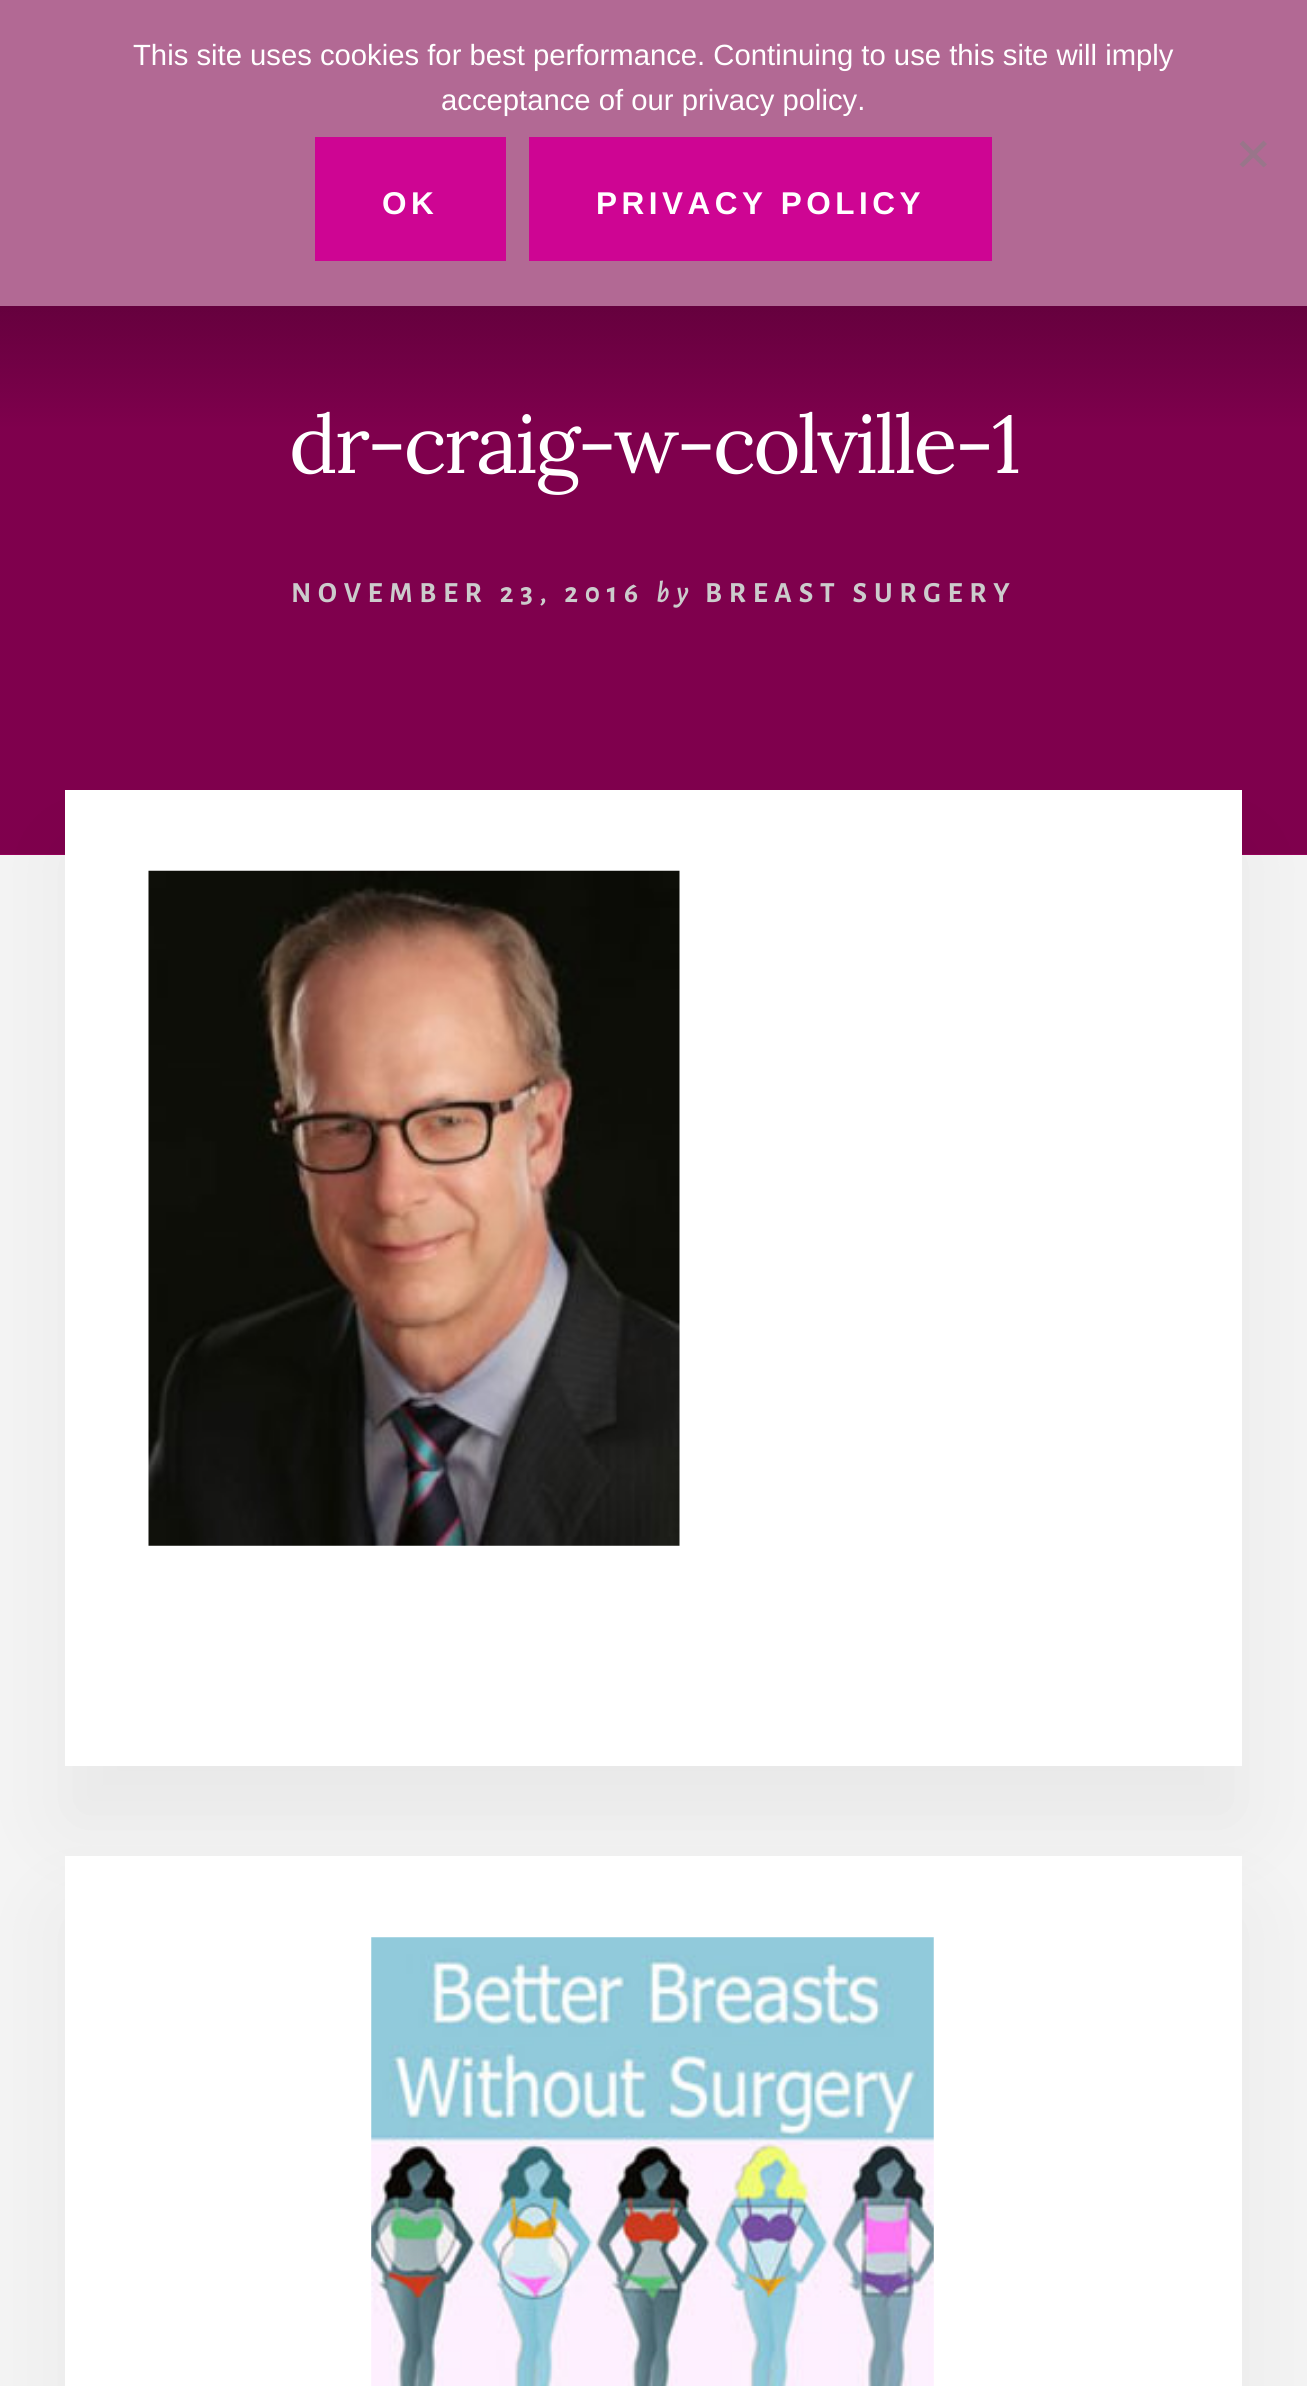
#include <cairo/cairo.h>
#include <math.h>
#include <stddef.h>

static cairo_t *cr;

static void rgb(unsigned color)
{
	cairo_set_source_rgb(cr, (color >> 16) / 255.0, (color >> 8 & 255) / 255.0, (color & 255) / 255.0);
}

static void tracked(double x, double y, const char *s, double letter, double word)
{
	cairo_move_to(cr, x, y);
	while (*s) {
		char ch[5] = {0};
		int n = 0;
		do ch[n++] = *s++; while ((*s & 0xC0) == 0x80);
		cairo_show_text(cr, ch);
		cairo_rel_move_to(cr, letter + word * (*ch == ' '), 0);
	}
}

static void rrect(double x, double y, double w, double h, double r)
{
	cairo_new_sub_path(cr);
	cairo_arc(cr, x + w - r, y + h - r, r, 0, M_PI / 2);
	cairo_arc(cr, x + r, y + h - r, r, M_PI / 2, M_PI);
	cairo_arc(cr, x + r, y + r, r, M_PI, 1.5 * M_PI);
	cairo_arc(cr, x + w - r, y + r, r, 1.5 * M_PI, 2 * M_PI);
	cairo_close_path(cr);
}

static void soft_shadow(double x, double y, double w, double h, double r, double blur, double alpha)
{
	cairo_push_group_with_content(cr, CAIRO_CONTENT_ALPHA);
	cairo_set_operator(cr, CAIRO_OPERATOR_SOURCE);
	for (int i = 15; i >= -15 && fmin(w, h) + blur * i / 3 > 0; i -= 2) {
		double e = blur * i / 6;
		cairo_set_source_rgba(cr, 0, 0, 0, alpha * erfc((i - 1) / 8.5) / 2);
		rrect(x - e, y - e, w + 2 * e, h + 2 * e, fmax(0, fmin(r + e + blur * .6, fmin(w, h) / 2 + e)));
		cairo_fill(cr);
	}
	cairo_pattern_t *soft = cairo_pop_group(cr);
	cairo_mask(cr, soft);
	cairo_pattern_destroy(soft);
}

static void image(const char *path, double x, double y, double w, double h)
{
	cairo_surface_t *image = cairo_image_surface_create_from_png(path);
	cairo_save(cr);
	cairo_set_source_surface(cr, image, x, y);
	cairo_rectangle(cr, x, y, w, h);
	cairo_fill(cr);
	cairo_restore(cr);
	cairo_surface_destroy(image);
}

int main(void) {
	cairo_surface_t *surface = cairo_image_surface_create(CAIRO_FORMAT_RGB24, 1307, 2386);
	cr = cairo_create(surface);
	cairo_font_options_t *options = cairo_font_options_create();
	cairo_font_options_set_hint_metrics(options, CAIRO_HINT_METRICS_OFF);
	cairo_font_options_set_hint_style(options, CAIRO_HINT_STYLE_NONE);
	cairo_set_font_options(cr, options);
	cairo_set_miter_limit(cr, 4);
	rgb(0xf4f4f4);
	cairo_paint(cr);
	rgb(0xb26994);
	cairo_rectangle(cr, 0, 0, 1307, 306);
	cairo_fill(cr);
	rgb(0x99758a);
	cairo_new_path(cr);
	cairo_move_to(cr, 1263.5, 140.5);
	cairo_line_to(cr, 1267, 144);
	cairo_line_to(cr, 1243, 167.5);
	cairo_line_to(cr, 1239.5, 164.5);
	cairo_close_path(cr);
	cairo_fill(cr);
	cairo_new_path(cr);
	cairo_move_to(cr, 1239.5, 144);
	cairo_line_to(cr, 1243, 140.5);
	cairo_line_to(cr, 1267, 164.5);
	cairo_line_to(cr, 1263.5, 167.5);
	cairo_close_path(cr);
	cairo_fill(cr);
	rgb(0xce0593);
	cairo_rectangle(cr, 315, 137, 191, 124);
	cairo_fill(cr);
	cairo_rectangle(cr, 529, 137, 463, 124);
	cairo_fill(cr);
	image("img/1.png", 0, 306, 1307, 549);
	rgb(0x000000);
	soft_shadow(65, 846, 1177, 977, 0, 45, 0.05);
	rgb(0xffffff);
	cairo_rectangle(cr, 65, 790, 1177, 976);
	cairo_fill(cr);
	image("img/2.png", 148, 870, 532, 676);
	rgb(0x000000);
	soft_shadow(65, 1913, 1177, 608, 0, 45, 0.05);
	rgb(0xffffff);
	cairo_rectangle(cr, 65, 1856, 1177, 530);
	cairo_fill(cr);
	image("img/3.png", 371, 1937, 563, 449);
	cairo_select_font_face(cr, "Liberation Sans", CAIRO_FONT_SLANT_NORMAL, CAIRO_FONT_WEIGHT_NORMAL);
	cairo_set_font_size(cr, 29.25);
	cairo_move_to(cr, 133, 65);
	cairo_show_text(cr, "This site uses cookies for best performance. Continuing to use this site will imply");
	cairo_move_to(cr, 441, 110);
	cairo_show_text(cr, "acceptance of our privacy policy.");
	cairo_select_font_face(cr, "Liberation Sans", CAIRO_FONT_SLANT_NORMAL, CAIRO_FONT_WEIGHT_BOLD);
	cairo_set_font_size(cr, 31.5);
	tracked(382, 214, "OK", 4.5, 0);
	tracked(596, 214, "PRIVACY POLICY", 4.5, 0);
	cairo_select_font_face(cr, "Lora", CAIRO_FONT_SLANT_NORMAL, CAIRO_FONT_WEIGHT_NORMAL);
	cairo_set_font_size(cr, 81);
	tracked(289, 473, "dr-craig-w-colville-1", -2.8, 0);
	cairo_select_font_face(cr, "Alegreya Sans", CAIRO_FONT_SLANT_NORMAL, CAIRO_FONT_WEIGHT_BOLD);
	cairo_set_font_size(cr, 29.25);
	rgb(0xcccccc);
	tracked(291, 602, "NOVEMBER 23, 2016", 6.75, 0);
	cairo_select_font_face(cr, "Alegreya Sans", CAIRO_FONT_SLANT_ITALIC, CAIRO_FONT_WEIGHT_BOLD);
	tracked(656, 602, "by", 6.75, 0);
	cairo_select_font_face(cr, "Alegreya Sans", CAIRO_FONT_SLANT_NORMAL, CAIRO_FONT_WEIGHT_BOLD);
	tracked(705, 602, "BREAST SURGERY", 6.75, 0);
	cairo_surface_write_to_png(surface, "page.png");
	cairo_font_options_destroy(options);
	cairo_destroy(cr);
	cairo_surface_destroy(surface);
	return 0;
}
